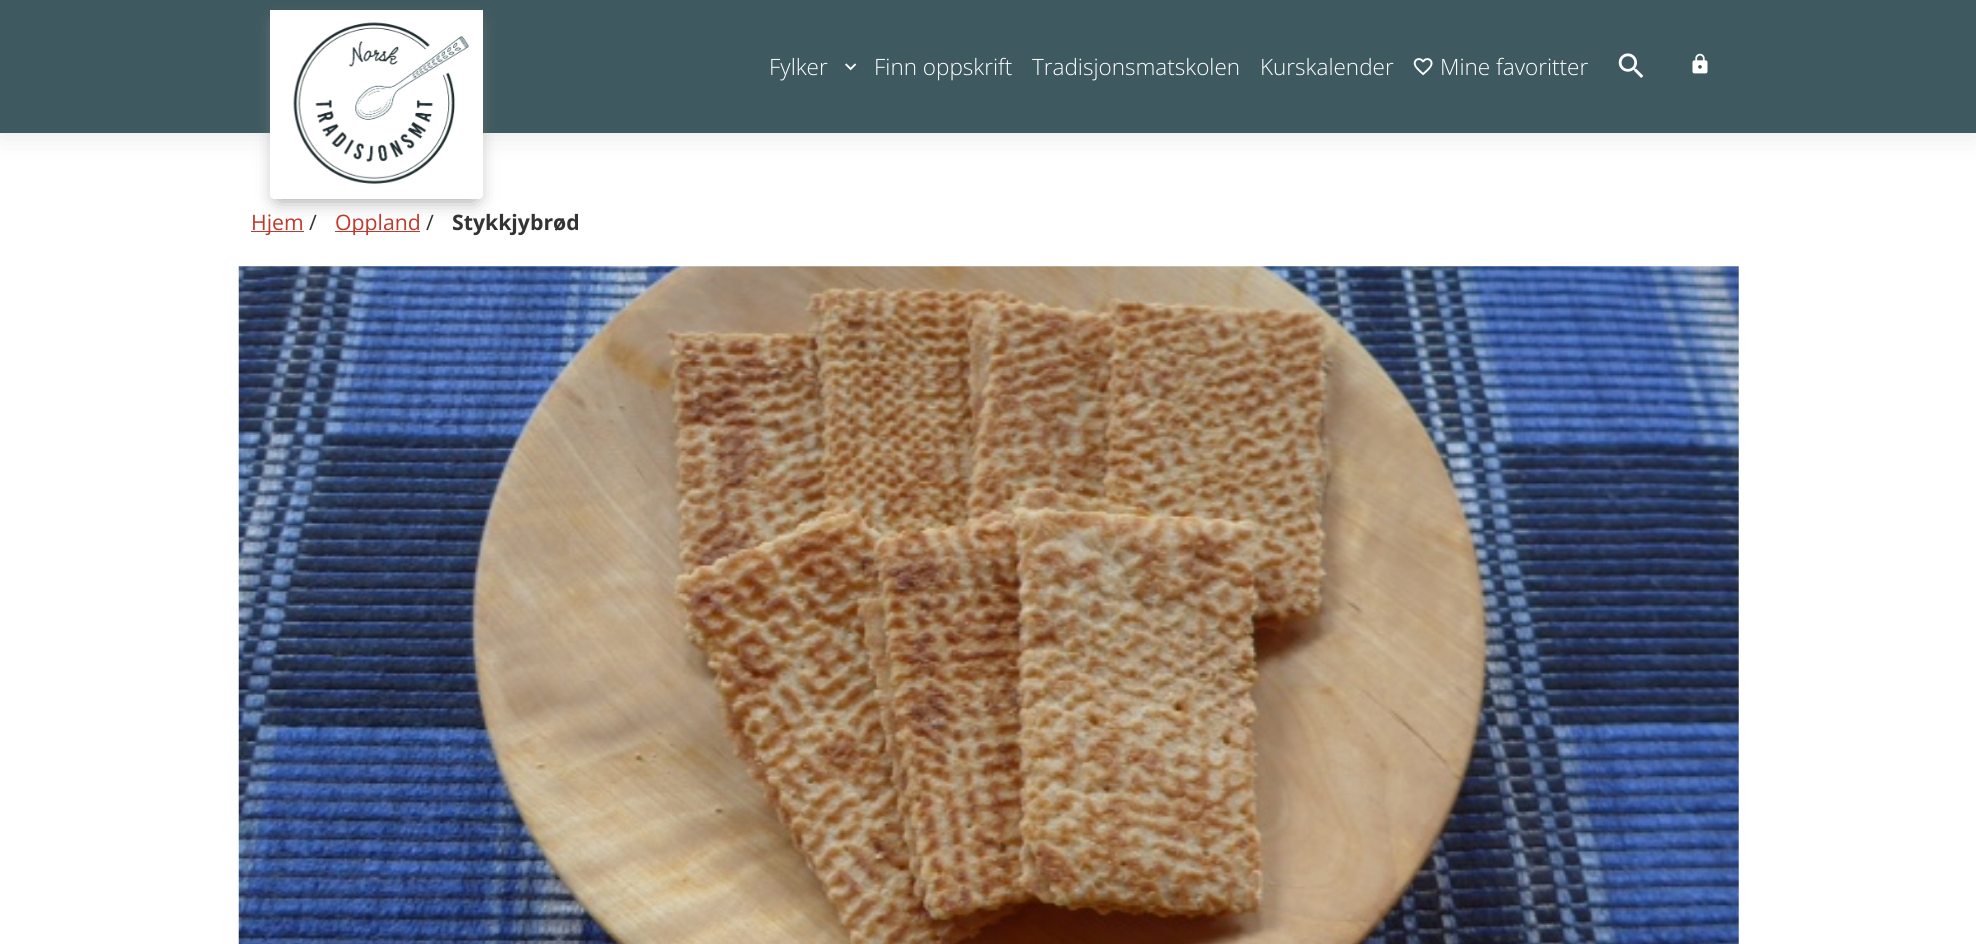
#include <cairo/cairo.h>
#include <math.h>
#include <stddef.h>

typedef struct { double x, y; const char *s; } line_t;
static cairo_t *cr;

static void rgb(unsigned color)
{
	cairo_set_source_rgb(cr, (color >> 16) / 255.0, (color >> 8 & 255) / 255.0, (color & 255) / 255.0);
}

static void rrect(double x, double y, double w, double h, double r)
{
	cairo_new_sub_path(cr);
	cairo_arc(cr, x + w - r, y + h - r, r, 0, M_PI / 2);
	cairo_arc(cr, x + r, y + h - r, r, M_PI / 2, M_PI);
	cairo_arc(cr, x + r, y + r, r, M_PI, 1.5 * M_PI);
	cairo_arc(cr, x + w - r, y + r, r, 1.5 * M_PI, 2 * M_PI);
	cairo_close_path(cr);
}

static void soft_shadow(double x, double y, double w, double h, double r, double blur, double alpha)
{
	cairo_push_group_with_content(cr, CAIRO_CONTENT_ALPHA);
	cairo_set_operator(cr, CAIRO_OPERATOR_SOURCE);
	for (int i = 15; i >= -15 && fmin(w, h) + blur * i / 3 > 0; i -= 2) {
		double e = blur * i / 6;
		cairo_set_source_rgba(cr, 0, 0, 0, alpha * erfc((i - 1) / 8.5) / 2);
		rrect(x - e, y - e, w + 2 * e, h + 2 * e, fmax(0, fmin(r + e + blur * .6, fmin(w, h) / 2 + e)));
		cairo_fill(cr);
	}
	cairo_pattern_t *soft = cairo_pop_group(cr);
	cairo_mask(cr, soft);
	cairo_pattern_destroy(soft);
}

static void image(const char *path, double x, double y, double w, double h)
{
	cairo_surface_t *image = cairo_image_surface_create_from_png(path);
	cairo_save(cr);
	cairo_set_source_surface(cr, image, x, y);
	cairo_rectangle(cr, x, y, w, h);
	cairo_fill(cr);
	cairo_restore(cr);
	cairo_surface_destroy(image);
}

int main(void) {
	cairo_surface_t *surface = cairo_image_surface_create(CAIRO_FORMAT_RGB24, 1976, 944);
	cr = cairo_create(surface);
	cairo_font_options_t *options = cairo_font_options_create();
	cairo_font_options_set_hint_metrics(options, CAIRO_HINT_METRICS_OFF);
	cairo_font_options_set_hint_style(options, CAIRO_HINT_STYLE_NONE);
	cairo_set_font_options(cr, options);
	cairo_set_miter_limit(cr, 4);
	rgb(0xffffff);
	cairo_paint(cr);
	rgb(0x000000);
	soft_shadow(0, 1, 1976, 133, 0, 14.5, 0.1);
	rgb(0x3e5960);
	cairo_rectangle(cr, 0, 0, 1976, 133);
	cairo_fill(cr);
	rgb(0x888888);
	soft_shadow(278, 24, 197, 174, 0, 10, 1);
	rgb(0xffffff);
	cairo_new_path(cr);
	cairo_move_to(cr, 270, 10);
	cairo_line_to(cr, 483, 10);
	cairo_line_to(cr, 483, 195);
	cairo_curve_to(cr, 483, 197, 481, 199, 479, 199);
	cairo_line_to(cr, 274, 199);
	cairo_curve_to(cr, 272, 199, 270, 197, 270, 195);
	cairo_close_path(cr);
	cairo_fill(cr);
	image("img/1.png", 293, 22, 176, 162);
	image("img/2.png", 845, 63, 12, 8);
	image("img/3.png", 1413, 58, 20, 18);
	image("img/4.png", 1618, 53, 26, 25);
	image("img/5.png", 1692, 53, 16, 21);
	rgb(0xc0392b);
	cairo_rectangle(cr, 251, 231, 53, 1);
	cairo_fill(cr);
	cairo_rectangle(cr, 335, 231, 85, 1);
	cairo_fill(cr);
	image("img/6.png", 238, 266, 1501, 678);
	cairo_select_font_face(cr, "Open Sans Light", CAIRO_FONT_SLANT_NORMAL, CAIRO_FONT_WEIGHT_NORMAL);
	cairo_set_font_size(cr, 22.5);
	rgb(0xffffff);
	{
		static const line_t items[] = {
			{769, 75, "Fylker"},
			{874, 75, "Finn oppskrift"},
			{1032, 75, "Tradisjonsmatskolen"},
			{1260, 75, "Kurskalender"},
			{1440, 75, "Mine favoritter"},
		};
		for (size_t i = 0; i < sizeof items / sizeof *items; i++) {
			cairo_move_to(cr, items[i].x, items[i].y);
			cairo_show_text(cr, items[i].s);
		}
	}
	cairo_select_font_face(cr, "Open Sans", CAIRO_FONT_SLANT_NORMAL, CAIRO_FONT_WEIGHT_NORMAL);
	cairo_set_font_size(cr, 21.25);
	rgb(0xc0392b);
	cairo_move_to(cr, 251, 230);
	cairo_show_text(cr, "Hjem");
	rgb(0x333333);
	cairo_move_to(cr, 309, 230);
	cairo_show_text(cr, "/");
	rgb(0xc0392b);
	cairo_move_to(cr, 335, 230);
	cairo_show_text(cr, "Oppland");
	rgb(0x333333);
	cairo_move_to(cr, 426, 230);
	cairo_show_text(cr, "/");
	cairo_select_font_face(cr, "Open Sans", CAIRO_FONT_SLANT_NORMAL, CAIRO_FONT_WEIGHT_BOLD);
	cairo_move_to(cr, 452, 230);
	cairo_show_text(cr, "Stykkjybrød");
	cairo_surface_write_to_png(surface, "page.png");
	cairo_font_options_destroy(options);
	cairo_destroy(cr);
	cairo_surface_destroy(surface);
	return 0;
}
